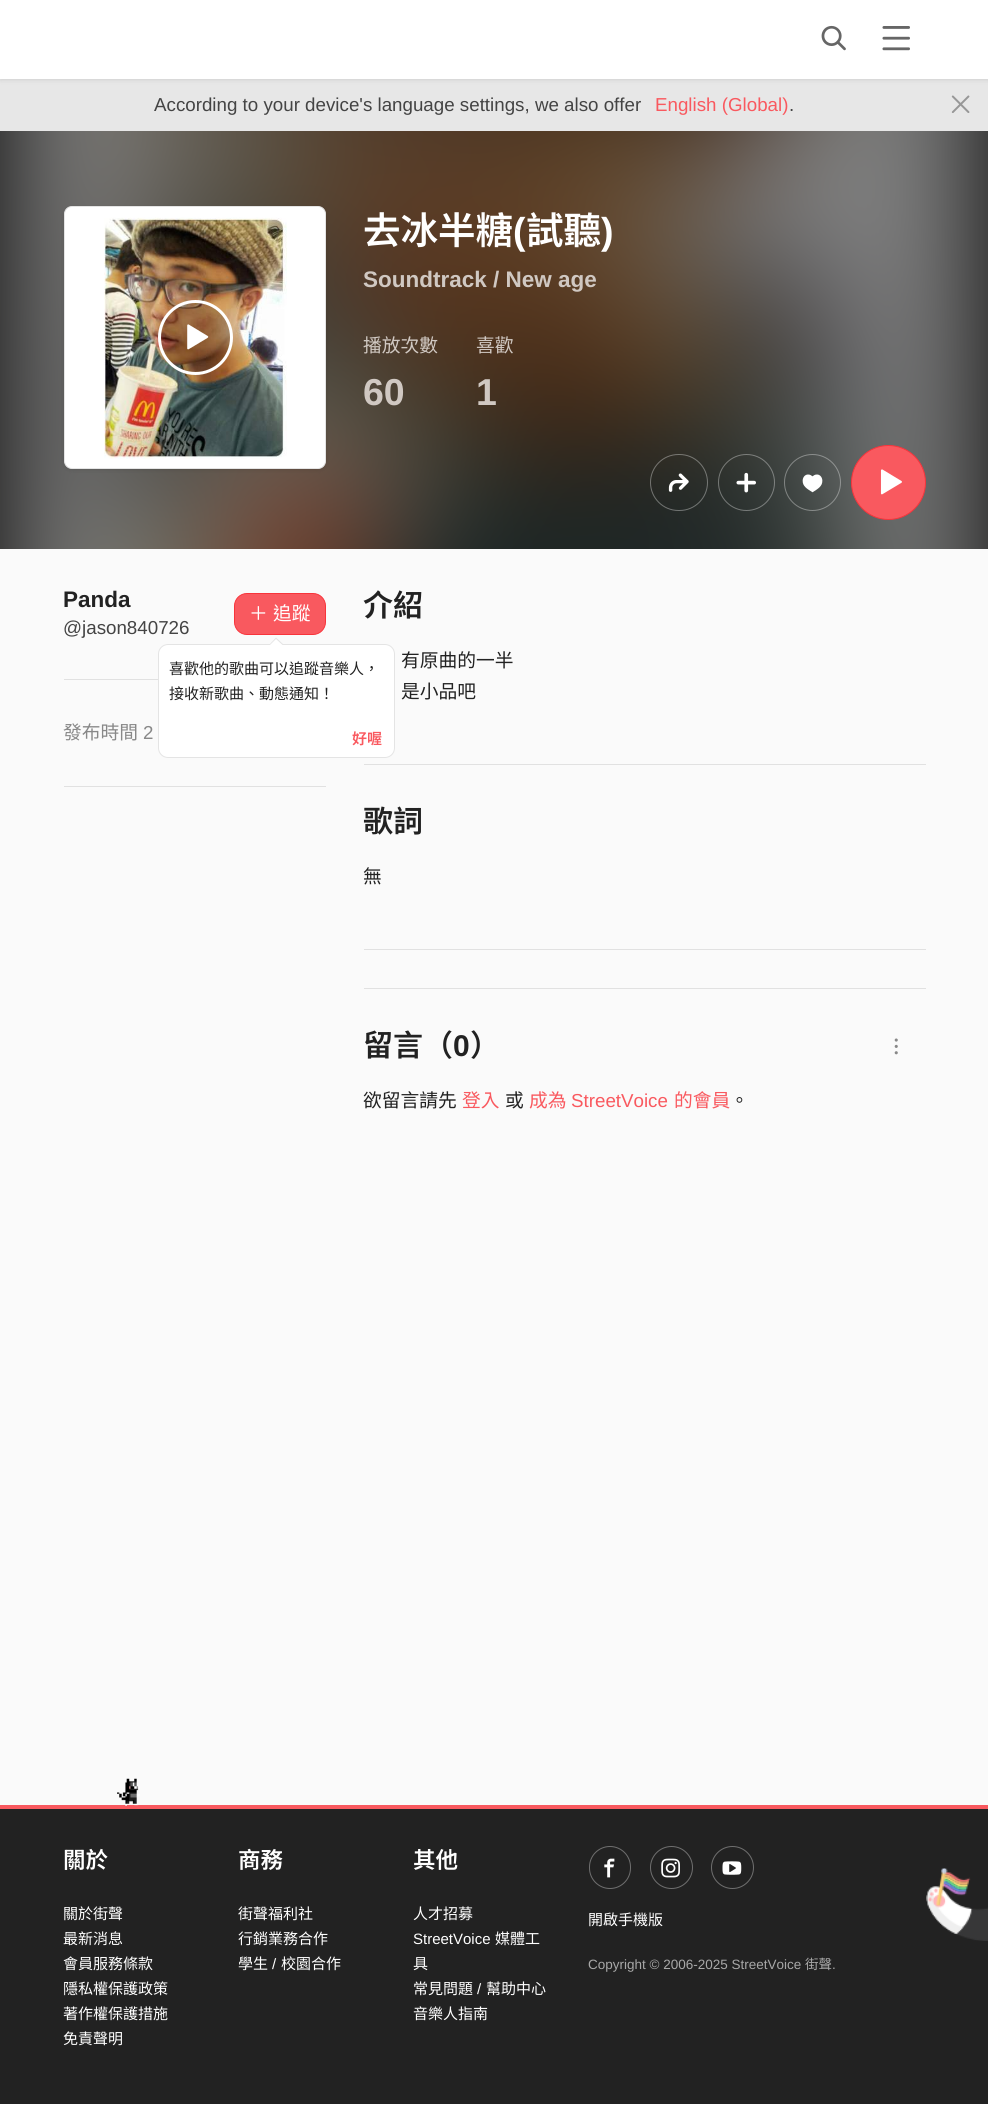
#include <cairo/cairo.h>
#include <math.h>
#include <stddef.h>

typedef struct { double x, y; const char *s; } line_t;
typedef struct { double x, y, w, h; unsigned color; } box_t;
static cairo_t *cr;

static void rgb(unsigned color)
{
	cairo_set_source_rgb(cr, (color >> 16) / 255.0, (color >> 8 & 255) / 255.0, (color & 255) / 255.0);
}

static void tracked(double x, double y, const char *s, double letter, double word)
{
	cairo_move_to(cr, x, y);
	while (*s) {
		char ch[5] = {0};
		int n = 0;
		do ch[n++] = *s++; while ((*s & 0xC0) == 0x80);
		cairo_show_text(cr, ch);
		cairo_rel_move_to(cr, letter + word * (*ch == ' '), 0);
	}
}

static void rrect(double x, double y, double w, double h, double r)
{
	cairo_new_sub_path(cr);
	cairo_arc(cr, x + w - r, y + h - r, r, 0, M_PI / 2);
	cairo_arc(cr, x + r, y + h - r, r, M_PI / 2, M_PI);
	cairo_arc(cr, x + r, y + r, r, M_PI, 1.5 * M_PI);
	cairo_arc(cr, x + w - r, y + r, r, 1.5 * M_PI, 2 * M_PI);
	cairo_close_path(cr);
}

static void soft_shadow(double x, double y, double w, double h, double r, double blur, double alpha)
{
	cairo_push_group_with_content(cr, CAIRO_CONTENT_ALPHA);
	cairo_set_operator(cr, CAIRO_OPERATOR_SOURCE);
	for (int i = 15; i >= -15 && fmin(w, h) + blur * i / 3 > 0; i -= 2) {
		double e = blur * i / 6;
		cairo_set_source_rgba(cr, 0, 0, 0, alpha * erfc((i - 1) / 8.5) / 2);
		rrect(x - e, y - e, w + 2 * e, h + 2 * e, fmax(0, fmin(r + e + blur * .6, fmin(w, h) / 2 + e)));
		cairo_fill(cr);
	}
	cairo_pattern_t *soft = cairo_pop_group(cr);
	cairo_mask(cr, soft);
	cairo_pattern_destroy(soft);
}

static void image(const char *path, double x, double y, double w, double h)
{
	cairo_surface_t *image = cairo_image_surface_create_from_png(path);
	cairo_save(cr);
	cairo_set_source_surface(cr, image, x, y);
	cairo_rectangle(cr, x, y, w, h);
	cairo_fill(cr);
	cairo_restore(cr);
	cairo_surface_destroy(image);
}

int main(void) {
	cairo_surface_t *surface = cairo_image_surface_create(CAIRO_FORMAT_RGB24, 988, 2104);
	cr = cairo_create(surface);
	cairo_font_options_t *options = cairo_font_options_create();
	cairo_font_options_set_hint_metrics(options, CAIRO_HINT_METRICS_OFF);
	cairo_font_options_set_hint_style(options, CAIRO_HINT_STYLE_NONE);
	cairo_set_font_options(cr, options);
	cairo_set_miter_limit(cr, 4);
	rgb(0xfafafa);
	cairo_paint(cr);
	rgb(0xe7e7e7);
	cairo_rectangle(cr, 0, 79, 988, 52);
	cairo_fill(cr);
	image("img/1.png", 951, 95, 19, 18);
	rgb(0x000000);
	soft_shadow(0, 1, 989, 79, 0, 2.5, 0.1);
	rgb(0xffffff);
	cairo_rectangle(cr, 0, 0, 988, 79);
	cairo_fill(cr);
	image("img/2.png", 821, 25, 25, 26);
	image("img/3.png", 882, 26, 28, 25);
	rgb(0x000000);
	cairo_rectangle(cr, 0, 131, 988, 418);
	cairo_fill(cr);
	image("img/4.png", 0, 131, 988, 418);
	rgb(0x000000);
	soft_shadow(64, 208, 262, 262, 8, 2.5, 0.1);
	rgb(0xffffff);
	rrect(64.5, 206.5, 261, 262, 7.5);
	cairo_fill_preserve(cr);
	rgb(0xe4e4e4);
	cairo_set_line_width(cr, 1);
	cairo_stroke(cr);
	image("img/5.png", 104, 217, 183, 242);
	cairo_set_source_rgba(cr, 0, 0, 0, 0.2);
	cairo_arc(cr, 195.5, 337.5, 36, 0, 2 * M_PI);
	cairo_fill_preserve(cr);
	rgb(0xffffff);
	cairo_set_line_width(cr, 3);
	cairo_stroke(cr);
	image("img/6.png", 187, 324, 22, 26);
	rrect(650.5, 454.5, 57, 56, 28);
	cairo_set_source_rgba(cr, 1, 1, 1, 0.35);
	cairo_set_line_width(cr, 1);
	cairo_stroke(cr);
	image("img/7.png", 668, 473, 21, 19);
	cairo_arc(cr, 746.5, 482.5, 28, 0, 2 * M_PI);
	cairo_stroke(cr);
	image("img/8.png", 736, 472, 20, 21);
	cairo_arc(cr, 812.5, 482.5, 28, 0, 2 * M_PI);
	cairo_stroke(cr);
	image("img/9.png", 802, 474, 21, 19);
	rgb(0xf9595f);
	cairo_arc(cr, 888.5, 482.5, 37, 0, 2 * M_PI);
	cairo_fill_preserve(cr);
	rgb(0xf8343b);
	cairo_stroke(cr);
	image("img/10.png", 880, 469, 22, 26);
	rgb(0xf9595f);
	rrect(234.5, 593.5, 91, 41, 12.5);
	cairo_fill_preserve(cr);
	rgb(0xf8343b);
	cairo_stroke(cr);
	rgb(0xffffff);
	rrect(158.5, 644.5, 236, 113, 9.5);
	cairo_fill_preserve(cr);
	rgb(0xe4e4e4);
	cairo_stroke(cr);
	cairo_new_path(cr);
	cairo_move_to(cr, 284, 645);
	cairo_line_to(cr, 269, 645);
	cairo_line_to(cr, 276, 637.5);
	cairo_close_path(cr);
	cairo_fill(cr);
	rgb(0xffffff);
	cairo_new_path(cr);
	cairo_move_to(cr, 282.5, 645);
	cairo_line_to(cr, 270, 645);
	cairo_line_to(cr, 276, 639);
	cairo_close_path(cr);
	cairo_fill(cr);
	{
		static const box_t items[] = {
			{64, 679, 94, 1, 0xe1e1e1},
			{64, 786, 262, 1, 0xe1e1e1},
			{364, 764, 562, 1, 0xe1e1e1},
			{364, 949, 562, 1, 0xe1e1e1},
			{364, 988, 562, 1, 0xe1e1e1},
		};
		for (size_t i = 0; i < sizeof items / sizeof *items; i++) {
			rgb(items[i].color);
			cairo_rectangle(cr, items[i].x, items[i].y, items[i].w, items[i].h);
			cairo_fill(cr);
		}
	}
	image("img/11.png", 894, 1038, 4, 17);
	rgb(0x222222);
	cairo_rectangle(cr, 0, 1809, 988, 295);
	cairo_fill(cr);
	image("img/12.png", 926, 1868, 62, 73);
	rgb(0xf9595f);
	cairo_rectangle(cr, 0, 1805, 988, 4);
	cairo_fill(cr);
	image("img/13.png", 117, 1778, 23, 28);
	rrect(589.5, 1846.5, 41, 42, 20.5);
	rgb(0x6f6f6f);
	cairo_stroke(cr);
	image("img/14.png", 604, 1858, 11, 20);
	cairo_arc(cr, 671.5, 1867.5, 21, 0, 2 * M_PI);
	cairo_stroke(cr);
	image("img/15.png", 661, 1858, 19, 20);
	cairo_arc(cr, 732.5, 1867.5, 21, 0, 2 * M_PI);
	cairo_stroke(cr);
	image("img/16.png", 722, 1861, 20, 14);
	cairo_select_font_face(cr, "Liberation Sans", CAIRO_FONT_SLANT_NORMAL, CAIRO_FONT_WEIGHT_NORMAL);
	cairo_set_font_size(cr, 18.75);
	rgb(0x444444);
	cairo_move_to(cr, 154, 111);
	cairo_show_text(cr, "According to your device's language settings, we also offer");
	rgb(0xf9595f);
	cairo_move_to(cr, 655, 111);
	cairo_show_text(cr, "English (Global)");
	rgb(0x444444);
	cairo_move_to(cr, 789, 111);
	cairo_show_text(cr, ".");
	cairo_select_font_face(cr, "Noto Sans TC SemiBold", CAIRO_FONT_SLANT_NORMAL, CAIRO_FONT_WEIGHT_NORMAL);
	cairo_set_font_size(cr, 37.5);
	rgb(0xffffff);
	cairo_move_to(cr, 363, 244);
	cairo_show_text(cr, "去冰半糖");
	cairo_select_font_face(cr, "Liberation Sans", CAIRO_FONT_SLANT_NORMAL, CAIRO_FONT_WEIGHT_BOLD);
	cairo_move_to(cr, 513, 244);
	cairo_show_text(cr, "(");
	cairo_select_font_face(cr, "Noto Sans TC SemiBold", CAIRO_FONT_SLANT_NORMAL, CAIRO_FONT_WEIGHT_NORMAL);
	cairo_move_to(cr, 526, 244);
	cairo_show_text(cr, "試聽");
	cairo_select_font_face(cr, "Liberation Sans", CAIRO_FONT_SLANT_NORMAL, CAIRO_FONT_WEIGHT_BOLD);
	cairo_move_to(cr, 601, 244);
	cairo_show_text(cr, ")");
	cairo_set_font_size(cr, 22.5);
	rgb(0xd0c8c2);
	cairo_move_to(cr, 363, 287);
	cairo_show_text(cr, "Soundtrack / New age");
	cairo_select_font_face(cr, "Noto Sans TC", CAIRO_FONT_SLANT_NORMAL, CAIRO_FONT_WEIGHT_NORMAL);
	cairo_set_font_size(cr, 18.75);
	cairo_move_to(cr, 363, 352);
	cairo_show_text(cr, "播放次數");
	cairo_select_font_face(cr, "Liberation Sans", CAIRO_FONT_SLANT_NORMAL, CAIRO_FONT_WEIGHT_BOLD);
	cairo_set_font_size(cr, 37.5);
	cairo_move_to(cr, 363, 405);
	cairo_show_text(cr, "60");
	cairo_select_font_face(cr, "Noto Sans TC", CAIRO_FONT_SLANT_NORMAL, CAIRO_FONT_WEIGHT_NORMAL);
	cairo_set_font_size(cr, 18.75);
	cairo_move_to(cr, 476, 352);
	cairo_show_text(cr, "喜歡");
	cairo_select_font_face(cr, "Liberation Sans", CAIRO_FONT_SLANT_NORMAL, CAIRO_FONT_WEIGHT_BOLD);
	cairo_set_font_size(cr, 37.5);
	cairo_move_to(cr, 476, 405);
	cairo_show_text(cr, "1");
	cairo_set_font_size(cr, 22.5);
	rgb(0x222222);
	cairo_move_to(cr, 63, 607);
	cairo_show_text(cr, "Panda");
	cairo_select_font_face(cr, "Liberation Sans", CAIRO_FONT_SLANT_NORMAL, CAIRO_FONT_WEIGHT_NORMAL);
	cairo_set_font_size(cr, 18.75);
	rgb(0x444444);
	cairo_move_to(cr, 63, 634);
	cairo_show_text(cr, "@jason840726");
	cairo_select_font_face(cr, "Noto Sans TC", CAIRO_FONT_SLANT_NORMAL, CAIRO_FONT_WEIGHT_NORMAL);
	rgb(0xffffff);
	tracked(249, 620, "＋ 追蹤", 0, 1);
	cairo_set_font_size(cr, 15);
	rgb(0x222222);
	cairo_move_to(cr, 169, 674);
	cairo_show_text(cr, "喜歡他的歌曲可以追蹤音樂人，");
	cairo_move_to(cr, 169, 699);
	cairo_show_text(cr, "接收新歌曲、動態通知！");
	cairo_select_font_face(cr, "Noto Sans TC SemiBold", CAIRO_FONT_SLANT_NORMAL, CAIRO_FONT_WEIGHT_NORMAL);
	rgb(0xf9595f);
	cairo_move_to(cr, 352, 744);
	cairo_show_text(cr, "好喔");
	cairo_select_font_face(cr, "Noto Sans TC", CAIRO_FONT_SLANT_NORMAL, CAIRO_FONT_WEIGHT_NORMAL);
	cairo_set_font_size(cr, 18.75);
	rgb(0x888888);
	cairo_move_to(cr, 63, 739);
	cairo_show_text(cr, "發布時間");
	cairo_select_font_face(cr, "Liberation Sans", CAIRO_FONT_SLANT_NORMAL, CAIRO_FONT_WEIGHT_NORMAL);
	cairo_move_to(cr, 143, 739);
	cairo_show_text(cr, "2");
	cairo_select_font_face(cr, "Noto Sans TC SemiBold", CAIRO_FONT_SLANT_NORMAL, CAIRO_FONT_WEIGHT_NORMAL);
	cairo_set_font_size(cr, 30);
	rgb(0x222222);
	cairo_move_to(cr, 363, 616);
	cairo_show_text(cr, "介紹");
	cairo_select_font_face(cr, "Noto Sans TC", CAIRO_FONT_SLANT_NORMAL, CAIRO_FONT_WEIGHT_NORMAL);
	cairo_set_font_size(cr, 18.75);
	cairo_move_to(cr, 401, 667);
	cairo_show_text(cr, "有原曲的一半");
	cairo_move_to(cr, 401, 698);
	cairo_show_text(cr, "是小品吧");
	cairo_select_font_face(cr, "Noto Sans TC SemiBold", CAIRO_FONT_SLANT_NORMAL, CAIRO_FONT_WEIGHT_NORMAL);
	cairo_set_font_size(cr, 30);
	cairo_move_to(cr, 363, 832);
	cairo_show_text(cr, "歌詞");
	cairo_select_font_face(cr, "Noto Sans TC", CAIRO_FONT_SLANT_NORMAL, CAIRO_FONT_WEIGHT_NORMAL);
	cairo_set_font_size(cr, 18.75);
	cairo_move_to(cr, 363, 883);
	cairo_show_text(cr, "無");
	cairo_select_font_face(cr, "Noto Sans TC SemiBold", CAIRO_FONT_SLANT_NORMAL, CAIRO_FONT_WEIGHT_NORMAL);
	cairo_set_font_size(cr, 30);
	cairo_move_to(cr, 363, 1056);
	cairo_show_text(cr, "留言（");
	cairo_select_font_face(cr, "Liberation Sans", CAIRO_FONT_SLANT_NORMAL, CAIRO_FONT_WEIGHT_BOLD);
	cairo_move_to(cr, 453, 1056);
	cairo_show_text(cr, "0");
	cairo_select_font_face(cr, "Noto Sans TC SemiBold", CAIRO_FONT_SLANT_NORMAL, CAIRO_FONT_WEIGHT_NORMAL);
	cairo_move_to(cr, 470, 1056);
	cairo_show_text(cr, "）");
	cairo_select_font_face(cr, "Noto Sans TC", CAIRO_FONT_SLANT_NORMAL, CAIRO_FONT_WEIGHT_NORMAL);
	cairo_set_font_size(cr, 18.75);
	cairo_move_to(cr, 363, 1107);
	cairo_show_text(cr, "欲留言請先");
	rgb(0xf9595f);
	cairo_move_to(cr, 462, 1107);
	cairo_show_text(cr, "登入");
	rgb(0x222222);
	cairo_move_to(cr, 505, 1107);
	cairo_show_text(cr, "或");
	rgb(0xf9595f);
	cairo_move_to(cr, 529, 1107);
	cairo_show_text(cr, "成為");
	cairo_select_font_face(cr, "Liberation Sans", CAIRO_FONT_SLANT_NORMAL, CAIRO_FONT_WEIGHT_NORMAL);
	cairo_move_to(cr, 571, 1107);
	cairo_show_text(cr, "StreetVoice");
	cairo_select_font_face(cr, "Noto Sans TC", CAIRO_FONT_SLANT_NORMAL, CAIRO_FONT_WEIGHT_NORMAL);
	cairo_move_to(cr, 674, 1107);
	cairo_show_text(cr, "的會員");
	rgb(0x222222);
	cairo_move_to(cr, 730, 1107);
	cairo_show_text(cr, "。");
	cairo_select_font_face(cr, "Noto Sans TC SemiBold", CAIRO_FONT_SLANT_NORMAL, CAIRO_FONT_WEIGHT_NORMAL);
	cairo_set_font_size(cr, 22.5);
	rgb(0xffffff);
	cairo_move_to(cr, 63, 1868);
	cairo_show_text(cr, "關於");
	cairo_select_font_face(cr, "Noto Sans TC", CAIRO_FONT_SLANT_NORMAL, CAIRO_FONT_WEIGHT_NORMAL);
	cairo_set_font_size(cr, 15);
	{
		static const line_t items[] = {
			{63, 1919, "關於街聲"},
			{63, 1944, "最新消息"},
			{63, 1969, "會員服務條款"},
			{63, 1994, "隱私權保護政策"},
			{63, 2019, "著作權保護措施"},
			{63, 2044, "免責聲明"},
		};
		for (size_t i = 0; i < sizeof items / sizeof *items; i++) {
			cairo_move_to(cr, items[i].x, items[i].y);
			cairo_show_text(cr, items[i].s);
		}
	}
	cairo_select_font_face(cr, "Noto Sans TC SemiBold", CAIRO_FONT_SLANT_NORMAL, CAIRO_FONT_WEIGHT_NORMAL);
	cairo_set_font_size(cr, 22.5);
	cairo_move_to(cr, 238, 1868);
	cairo_show_text(cr, "商務");
	cairo_select_font_face(cr, "Noto Sans TC", CAIRO_FONT_SLANT_NORMAL, CAIRO_FONT_WEIGHT_NORMAL);
	cairo_set_font_size(cr, 15);
	{
		static const line_t items[] = {
			{238, 1919, "街聲福利社"},
			{238, 1944, "行銷業務合作"},
			{238, 1969, "學生"},
		};
		for (size_t i = 0; i < sizeof items / sizeof *items; i++) {
			cairo_move_to(cr, items[i].x, items[i].y);
			cairo_show_text(cr, items[i].s);
		}
	}
	cairo_select_font_face(cr, "Liberation Sans", CAIRO_FONT_SLANT_NORMAL, CAIRO_FONT_WEIGHT_NORMAL);
	cairo_move_to(cr, 272, 1969);
	cairo_show_text(cr, "/");
	cairo_select_font_face(cr, "Noto Sans TC", CAIRO_FONT_SLANT_NORMAL, CAIRO_FONT_WEIGHT_NORMAL);
	cairo_move_to(cr, 281, 1969);
	cairo_show_text(cr, "校園合作");
	cairo_select_font_face(cr, "Noto Sans TC SemiBold", CAIRO_FONT_SLANT_NORMAL, CAIRO_FONT_WEIGHT_NORMAL);
	cairo_set_font_size(cr, 22.5);
	cairo_move_to(cr, 413, 1868);
	cairo_show_text(cr, "其他");
	cairo_select_font_face(cr, "Noto Sans TC", CAIRO_FONT_SLANT_NORMAL, CAIRO_FONT_WEIGHT_NORMAL);
	cairo_set_font_size(cr, 15);
	cairo_move_to(cr, 413, 1919);
	cairo_show_text(cr, "人才招募");
	cairo_select_font_face(cr, "Liberation Sans", CAIRO_FONT_SLANT_NORMAL, CAIRO_FONT_WEIGHT_NORMAL);
	cairo_move_to(cr, 413, 1944);
	cairo_show_text(cr, "StreetVoice");
	cairo_select_font_face(cr, "Noto Sans TC", CAIRO_FONT_SLANT_NORMAL, CAIRO_FONT_WEIGHT_NORMAL);
	{
		static const line_t items[] = {
			{495, 1944, "媒體工"},
			{413, 1969, "具"},
			{413, 1994, "常見問題"},
		};
		for (size_t i = 0; i < sizeof items / sizeof *items; i++) {
			cairo_move_to(cr, items[i].x, items[i].y);
			cairo_show_text(cr, items[i].s);
		}
	}
	cairo_select_font_face(cr, "Liberation Sans", CAIRO_FONT_SLANT_NORMAL, CAIRO_FONT_WEIGHT_NORMAL);
	cairo_move_to(cr, 477, 1994);
	cairo_show_text(cr, "/");
	cairo_select_font_face(cr, "Noto Sans TC", CAIRO_FONT_SLANT_NORMAL, CAIRO_FONT_WEIGHT_NORMAL);
	{
		static const line_t items[] = {
			{486, 1994, "幫助中心"},
			{413, 2019, "音樂人指南"},
			{588, 1925, "開啟手機版"},
		};
		for (size_t i = 0; i < sizeof items / sizeof *items; i++) {
			cairo_move_to(cr, items[i].x, items[i].y);
			cairo_show_text(cr, items[i].s);
		}
	}
	cairo_select_font_face(cr, "Liberation Sans", CAIRO_FONT_SLANT_NORMAL, CAIRO_FONT_WEIGHT_NORMAL);
	cairo_set_font_size(cr, 13.5);
	rgb(0xa8a8a8);
	cairo_move_to(cr, 588, 1969);
	cairo_show_text(cr, "Copyright © 2006-2025 StreetVoice");
	cairo_select_font_face(cr, "Noto Sans TC", CAIRO_FONT_SLANT_NORMAL, CAIRO_FONT_WEIGHT_NORMAL);
	cairo_move_to(cr, 805, 1969);
	cairo_show_text(cr, "街聲");
	cairo_select_font_face(cr, "Liberation Sans", CAIRO_FONT_SLANT_NORMAL, CAIRO_FONT_WEIGHT_NORMAL);
	cairo_move_to(cr, 832, 1969);
	cairo_show_text(cr, ".");
	cairo_surface_write_to_png(surface, "page.png");
	cairo_font_options_destroy(options);
	cairo_destroy(cr);
	cairo_surface_destroy(surface);
	return 0;
}
